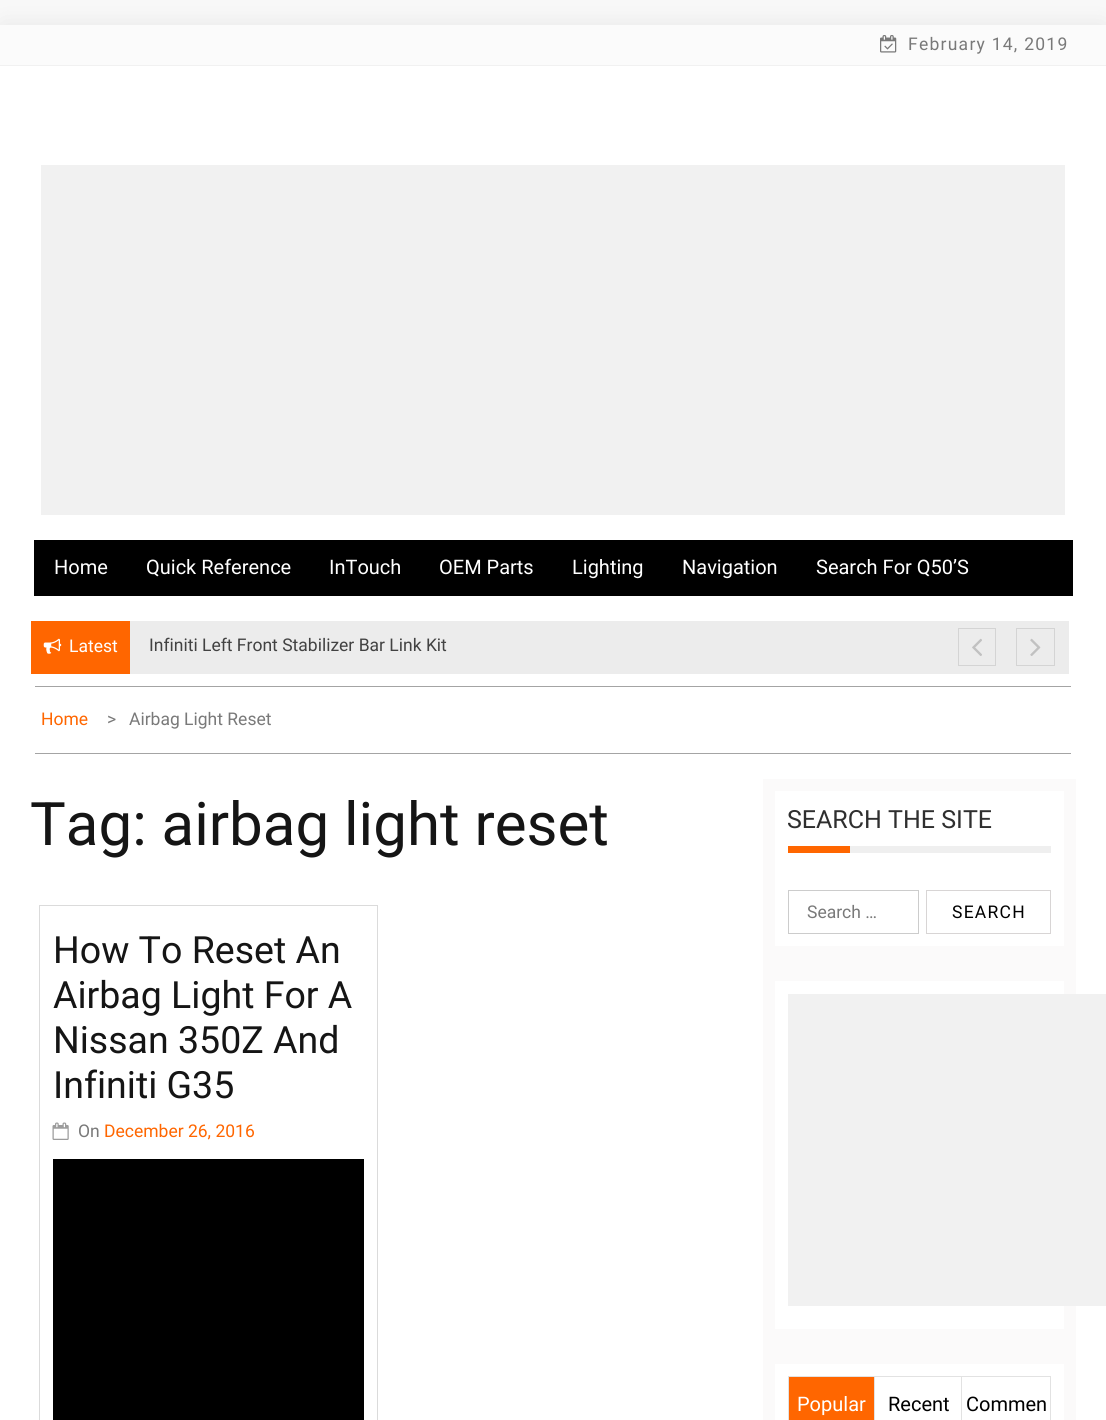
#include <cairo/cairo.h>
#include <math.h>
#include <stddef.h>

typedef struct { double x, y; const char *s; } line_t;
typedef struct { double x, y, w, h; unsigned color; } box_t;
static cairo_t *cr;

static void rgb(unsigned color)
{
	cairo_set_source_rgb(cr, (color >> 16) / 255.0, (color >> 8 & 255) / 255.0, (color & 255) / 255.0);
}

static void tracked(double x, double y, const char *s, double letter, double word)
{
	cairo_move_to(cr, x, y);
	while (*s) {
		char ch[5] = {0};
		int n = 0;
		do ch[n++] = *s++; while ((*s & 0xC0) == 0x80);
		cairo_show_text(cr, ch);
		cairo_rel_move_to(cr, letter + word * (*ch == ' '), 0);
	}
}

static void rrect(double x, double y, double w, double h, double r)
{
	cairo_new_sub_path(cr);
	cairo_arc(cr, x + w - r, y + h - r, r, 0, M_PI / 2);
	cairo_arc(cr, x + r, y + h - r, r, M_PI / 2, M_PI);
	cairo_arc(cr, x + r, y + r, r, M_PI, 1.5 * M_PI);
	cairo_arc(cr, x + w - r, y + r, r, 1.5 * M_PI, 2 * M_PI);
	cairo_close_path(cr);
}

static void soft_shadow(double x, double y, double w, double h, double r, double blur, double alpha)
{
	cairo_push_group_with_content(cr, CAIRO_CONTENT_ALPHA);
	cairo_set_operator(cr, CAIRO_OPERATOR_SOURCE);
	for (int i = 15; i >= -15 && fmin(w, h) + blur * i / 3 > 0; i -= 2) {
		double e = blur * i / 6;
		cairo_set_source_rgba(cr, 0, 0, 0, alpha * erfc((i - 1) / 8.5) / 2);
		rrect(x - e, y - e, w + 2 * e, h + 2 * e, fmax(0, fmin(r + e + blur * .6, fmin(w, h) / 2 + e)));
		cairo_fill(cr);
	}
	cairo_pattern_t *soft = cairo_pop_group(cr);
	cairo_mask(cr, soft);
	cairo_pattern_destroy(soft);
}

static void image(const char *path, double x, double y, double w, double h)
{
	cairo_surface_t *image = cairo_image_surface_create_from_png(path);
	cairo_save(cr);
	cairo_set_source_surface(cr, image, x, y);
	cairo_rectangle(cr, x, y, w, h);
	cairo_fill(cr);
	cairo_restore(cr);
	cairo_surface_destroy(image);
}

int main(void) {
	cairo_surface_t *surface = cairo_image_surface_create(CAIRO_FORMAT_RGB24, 1106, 1420);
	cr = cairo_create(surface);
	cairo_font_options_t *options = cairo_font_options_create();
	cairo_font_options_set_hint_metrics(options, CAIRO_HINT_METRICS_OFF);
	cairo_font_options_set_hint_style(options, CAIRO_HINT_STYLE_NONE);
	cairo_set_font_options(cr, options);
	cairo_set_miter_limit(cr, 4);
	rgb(0xf8f8f8);
	cairo_paint(cr);
	rgb(0x000000);
	soft_shadow(3, 25, 1101, 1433, 0, 12.5, 0.07);
	{
		static const box_t items[] = {
			{0, 66, 1106, 1354, 0xffffff},
			{0, 25, 1106, 40, 0xfbfbfb},
			{0, 65, 1106, 1, 0xf1f1f1},
		};
		for (size_t i = 0; i < sizeof items / sizeof *items; i++) {
			rgb(items[i].color);
			cairo_rectangle(cr, items[i].x, items[i].y, items[i].w, items[i].h);
			cairo_fill(cr);
		}
	}
	image("img/1.png", 880, 35, 17, 18);
	{
		static const box_t items[] = {
			{41, 165, 1024, 350, 0xf1f1f1},
			{34, 540, 1039, 56, 0x000000},
			{130, 621, 939, 53, 0xececec},
			{31, 621, 99, 53, 0xff6600},
		};
		for (size_t i = 0; i < sizeof items / sizeof *items; i++) {
			rgb(items[i].color);
			cairo_rectangle(cr, items[i].x, items[i].y, items[i].w, items[i].h);
			cairo_fill(cr);
		}
	}
	image("img/2.png", 43, 638, 19, 16);
	cairo_rectangle(cr, 958.5, 628.5, 37, 37);
	rgb(0xd4d4d4);
	cairo_set_line_width(cr, 1);
	cairo_stroke(cr);
	image("img/3.png", 972, 638, 10, 18);
	cairo_rectangle(cr, 1016.5, 628.5, 38, 37);
	cairo_stroke(cr);
	image("img/4.png", 1030, 638, 11, 18);
	rgb(0xa4a4a4);
	cairo_rectangle(cr, 35, 686, 1036, 1);
	cairo_fill(cr);
	cairo_rectangle(cr, 35, 753, 1036, 1);
	cairo_fill(cr);
	cairo_rectangle(cr, 39.5, 905.5, 338, 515);
	rgb(0xdbdbdb);
	cairo_stroke(cr);
	image("img/5.png", 52, 1122, 17, 18);
	{
		static const box_t items[] = {
			{53, 1159, 311, 261, 0x000000},
			{763, 779, 313, 641, 0xfbfafa},
			{775, 791, 289, 155, 0xffffff},
			{850, 846, 201, 7, 0xefefef},
			{788, 846, 62, 7, 0xff6600},
		};
		for (size_t i = 0; i < sizeof items / sizeof *items; i++) {
			rgb(items[i].color);
			cairo_rectangle(cr, items[i].x, items[i].y, items[i].w, items[i].h);
			cairo_fill(cr);
		}
	}
	cairo_rectangle(cr, 788.5, 890.5, 130, 43);
	rgb(0xcccccc);
	cairo_stroke(cr);
	cairo_rectangle(cr, 926.5, 890.5, 124, 43);
	rgb(0xd8d5d5);
	cairo_stroke(cr);
	{
		static const box_t items[] = {
			{775, 981, 289, 348, 0xffffff},
			{788, 994, 318, 312, 0xf1f1f1},
			{775, 1364, 289, 56, 0xffffff},
		};
		for (size_t i = 0; i < sizeof items / sizeof *items; i++) {
			rgb(items[i].color);
			cairo_rectangle(cr, items[i].x, items[i].y, items[i].w, items[i].h);
			cairo_fill(cr);
		}
	}
	rgb(0xff6600);
	cairo_rectangle(cr, 788.5, 1376.5, 86, 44);
	cairo_fill_preserve(cr);
	rgb(0xe2e2e2);
	cairo_stroke(cr);
	{
		static const box_t items[] = {
			{875, 1376, 176, 1, 0xe2e2e2},
			{961, 1376, 1, 44, 0xe2e2e2},
			{1050, 1376, 1, 44, 0xe2e2e2},
		};
		for (size_t i = 0; i < sizeof items / sizeof *items; i++) {
			rgb(items[i].color);
			cairo_rectangle(cr, items[i].x, items[i].y, items[i].w, items[i].h);
			cairo_fill(cr);
		}
	}
	cairo_select_font_face(cr, "Roboto", CAIRO_FONT_SLANT_NORMAL, CAIRO_FONT_WEIGHT_NORMAL);
	cairo_set_font_size(cr, 17.5);
	rgb(0x797979);
	tracked(908, 50, "February 14, 2019", 1.25, 0);
	cairo_set_font_size(cr, 20);
	rgb(0xffffff);
	{
		static const line_t items[] = {
			{54, 574, "Home"},
			{146, 574, "Quick Reference"},
			{329, 574, "InTouch"},
			{439, 574, "OEM Parts"},
			{572, 574, "Lighting"},
			{682, 574, "Navigation"},
			{816, 574, "Search For Q50’S"},
		};
		for (size_t i = 0; i < sizeof items / sizeof *items; i++) {
			cairo_move_to(cr, items[i].x, items[i].y);
			cairo_show_text(cr, items[i].s);
		}
	}
	cairo_set_font_size(cr, 17.5);
	cairo_move_to(cr, 69, 652);
	cairo_show_text(cr, "Latest");
	rgb(0x424242);
	cairo_move_to(cr, 149, 651);
	cairo_show_text(cr, "Infiniti Left Front Stabilizer Bar Link Kit");
	rgb(0xff6600);
	cairo_move_to(cr, 41, 725);
	cairo_show_text(cr, "Home");
	rgb(0x797979);
	cairo_move_to(cr, 107, 725);
	cairo_show_text(cr, ">");
	cairo_move_to(cr, 129, 725);
	cairo_show_text(cr, "Airbag Light Reset");
	cairo_set_font_size(cr, 60);
	rgb(0x151515);
	cairo_move_to(cr, 30, 845);
	cairo_show_text(cr, "Tag: airbag light reset");
	cairo_set_font_size(cr, 37.5);
	{
		static const line_t items[] = {
			{53, 963, "How To Reset An"},
			{53, 1008, "Airbag Light For A"},
			{53, 1053, "Nissan 350Z And"},
			{53, 1098, "Infiniti G35"},
		};
		for (size_t i = 0; i < sizeof items / sizeof *items; i++) {
			cairo_move_to(cr, items[i].x, items[i].y);
			cairo_show_text(cr, items[i].s);
		}
	}
	cairo_set_font_size(cr, 17.5);
	rgb(0x797979);
	cairo_move_to(cr, 78, 1137);
	cairo_show_text(cr, "On");
	rgb(0xff6600);
	cairo_move_to(cr, 104, 1137);
	cairo_show_text(cr, "December 26, 2016");
	cairo_set_font_size(cr, 25);
	rgb(0x2f2f2f);
	cairo_move_to(cr, 787, 828);
	cairo_show_text(cr, "SEARCH THE SITE");
	cairo_set_font_size(cr, 17.5);
	rgb(0x797979);
	cairo_move_to(cr, 807, 918);
	cairo_show_text(cr, "Search …");
	rgb(0x000000);
	tracked(952, 918, "SEARCH", 1.25, 0);
	cairo_set_font_size(cr, 20);
	rgb(0xffffff);
	cairo_move_to(cr, 797, 1411);
	cairo_show_text(cr, "Popular");
	rgb(0x000000);
	cairo_move_to(cr, 888, 1411);
	cairo_show_text(cr, "Recent");
	cairo_move_to(cr, 966, 1411);
	cairo_show_text(cr, "Commen");
	cairo_surface_write_to_png(surface, "page.png");
	cairo_font_options_destroy(options);
	cairo_destroy(cr);
	cairo_surface_destroy(surface);
	return 0;
}
